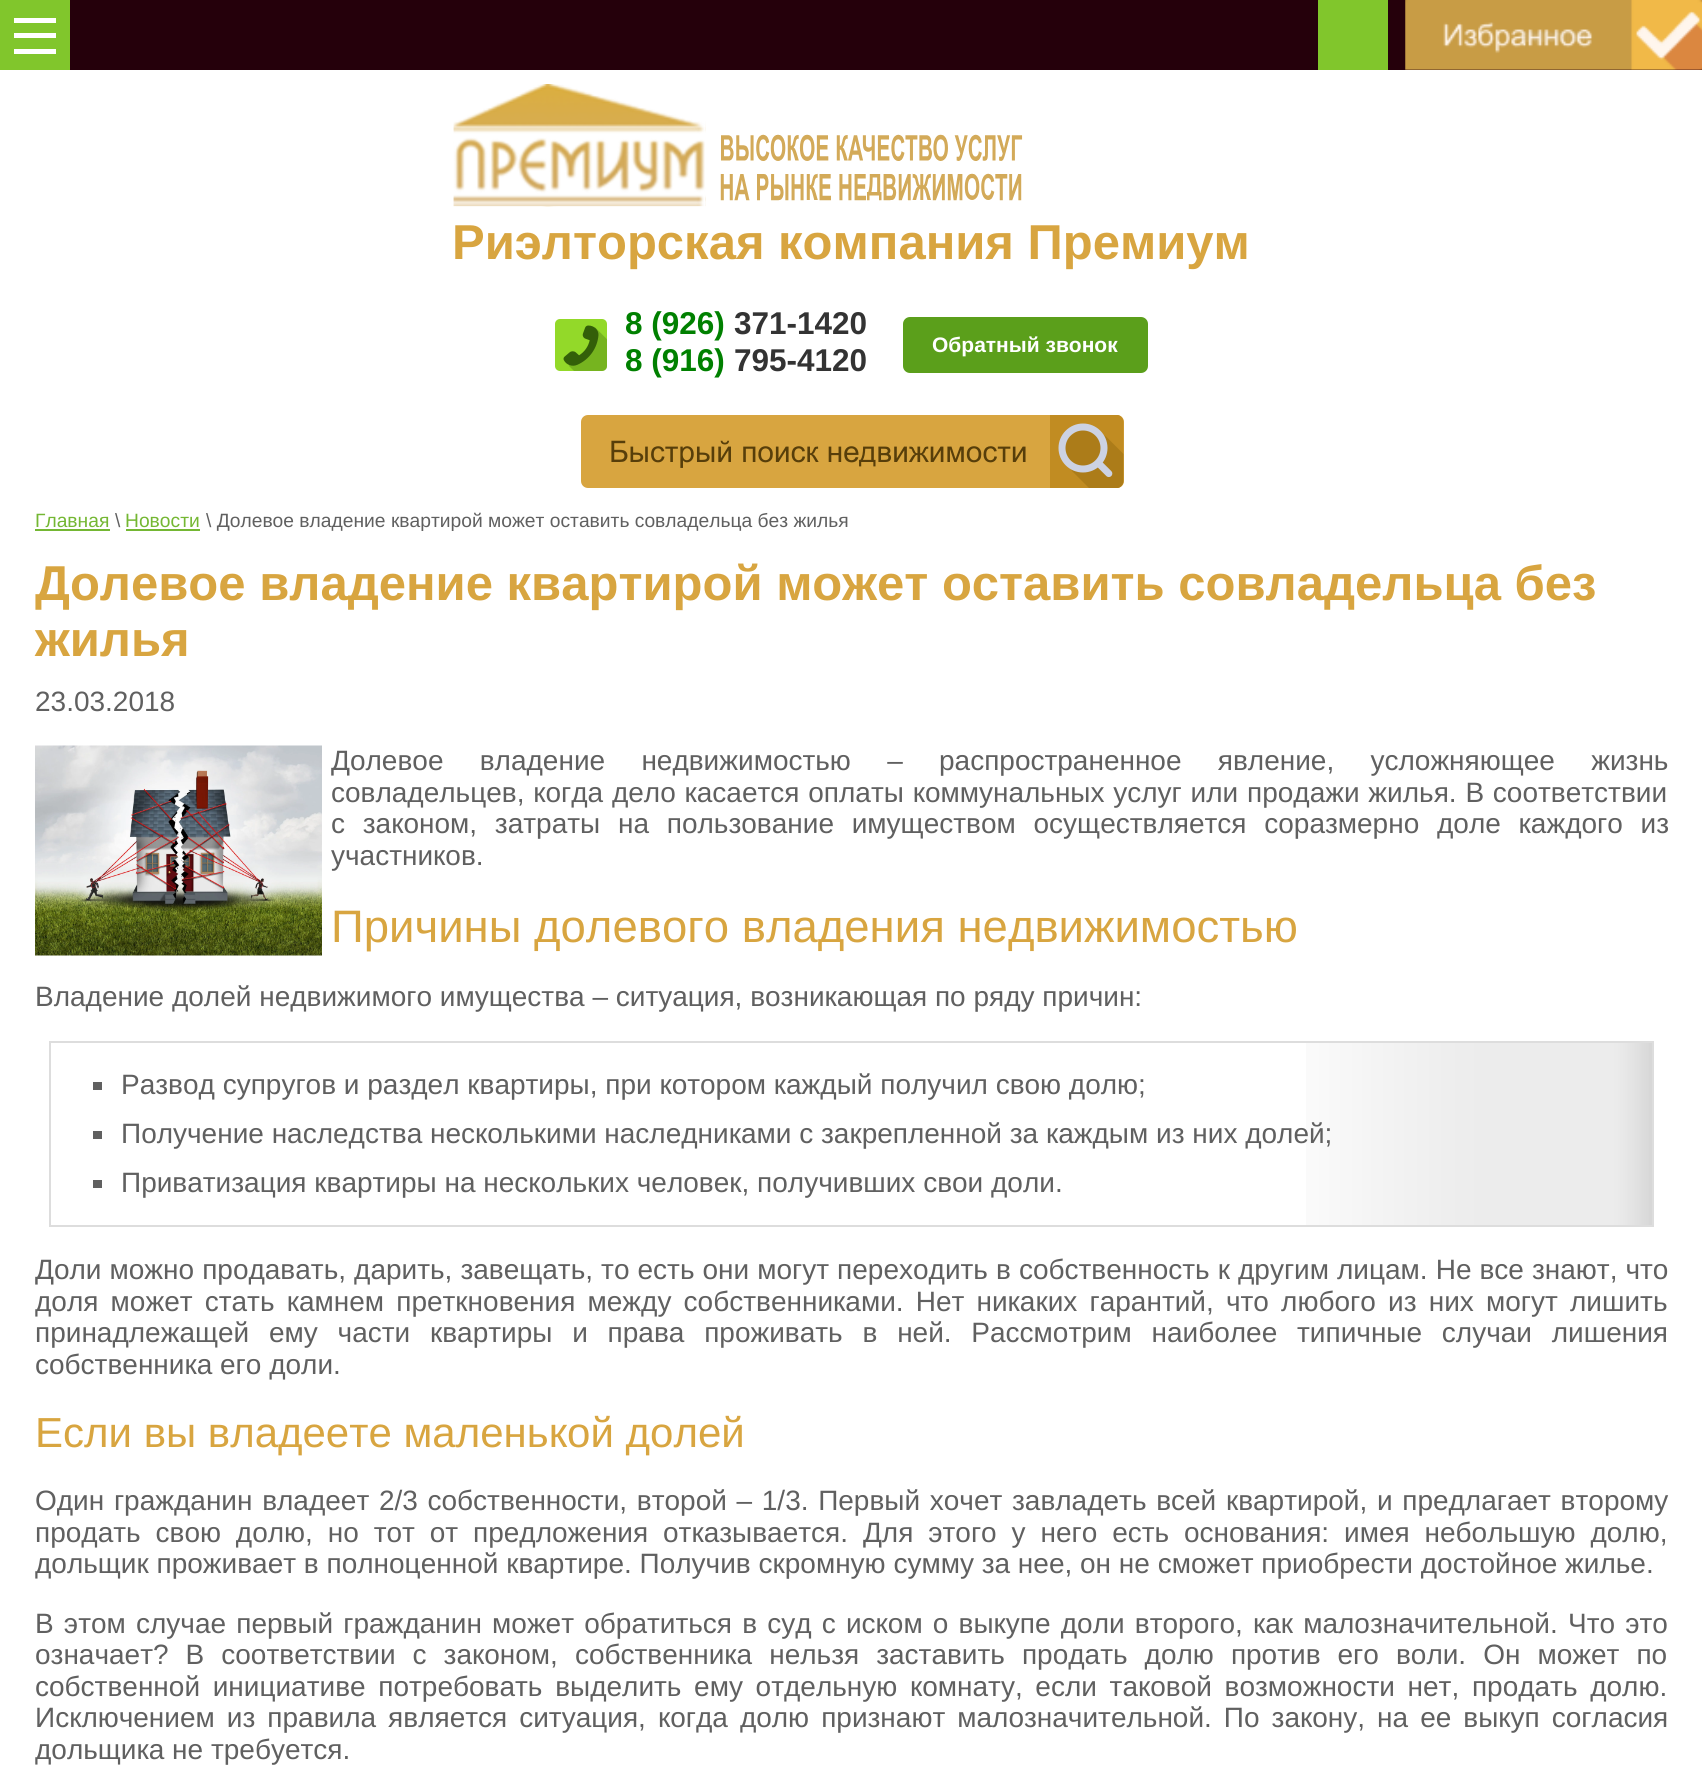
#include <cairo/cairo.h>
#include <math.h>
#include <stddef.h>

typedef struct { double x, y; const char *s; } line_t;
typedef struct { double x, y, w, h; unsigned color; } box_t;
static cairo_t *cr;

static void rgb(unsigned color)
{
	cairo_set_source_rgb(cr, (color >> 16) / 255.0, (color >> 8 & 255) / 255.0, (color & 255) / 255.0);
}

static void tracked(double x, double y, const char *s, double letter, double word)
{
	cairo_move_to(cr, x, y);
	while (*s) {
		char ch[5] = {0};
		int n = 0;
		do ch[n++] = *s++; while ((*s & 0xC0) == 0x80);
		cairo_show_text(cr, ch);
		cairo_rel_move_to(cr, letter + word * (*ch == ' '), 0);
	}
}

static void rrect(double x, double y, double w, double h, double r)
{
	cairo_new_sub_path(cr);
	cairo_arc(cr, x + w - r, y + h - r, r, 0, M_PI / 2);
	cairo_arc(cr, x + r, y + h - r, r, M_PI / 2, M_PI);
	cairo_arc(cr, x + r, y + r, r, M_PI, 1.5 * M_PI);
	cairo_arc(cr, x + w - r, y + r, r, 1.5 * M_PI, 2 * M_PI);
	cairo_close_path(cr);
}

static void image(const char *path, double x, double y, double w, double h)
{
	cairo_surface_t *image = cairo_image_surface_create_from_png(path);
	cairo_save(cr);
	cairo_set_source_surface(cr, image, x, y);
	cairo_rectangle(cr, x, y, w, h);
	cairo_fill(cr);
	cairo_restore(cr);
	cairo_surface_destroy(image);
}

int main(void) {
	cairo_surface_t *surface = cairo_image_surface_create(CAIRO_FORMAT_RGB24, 1702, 1781);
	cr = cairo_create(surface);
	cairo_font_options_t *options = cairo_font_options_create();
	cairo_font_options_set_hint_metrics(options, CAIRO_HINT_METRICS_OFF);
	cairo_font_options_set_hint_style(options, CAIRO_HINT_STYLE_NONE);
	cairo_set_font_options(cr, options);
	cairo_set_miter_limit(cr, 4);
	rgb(0xffffff);
	cairo_paint(cr);
	{
		static const box_t items[] = {
			{0, 0, 70, 70, 0x81c62c},
			{14, 18, 42, 5, 0xffffff},
			{14, 49, 42, 5, 0xffffff},
			{14, 33, 42, 5, 0xffffff},
			{70, 0, 1632, 70, 0x25000b},
			{1318, 0, 70, 70, 0x81c62c},
		};
		for (size_t i = 0; i < sizeof items / sizeof *items; i++) {
			rgb(items[i].color);
			cairo_rectangle(cr, items[i].x, items[i].y, items[i].w, items[i].h);
			cairo_fill(cr);
		}
	}
	image("img/1.png", 1405, 0, 297, 70);
	image("img/2.png", 453, 84, 570, 123);
	image("img/3.png", 555, 319, 52, 52);
	rgb(0x5b9f1b);
	rrect(904, 318, 243, 54, 6);
	cairo_fill_preserve(cr);
	cairo_stroke(cr);
	image("img/4.png", 581, 415, 543, 73);
	rgb(0x74b733);
	cairo_rectangle(cr, 35, 529, 75, 2);
	cairo_fill(cr);
	cairo_rectangle(cr, 126, 529, 74, 2);
	cairo_fill(cr);
	image("img/5.png", 35, 745, 287, 211);
	image("img/6.png", 1306, 1043, 346, 182);
	cairo_rectangle(cr, 50, 1042, 1603, 184);
	rgb(0xdddddd);
	cairo_stroke(cr);
	{
		static const box_t items[] = {
			{93, 1082, 9, 8, 0x606060},
			{93, 1131, 9, 8, 0x606060},
			{93, 1180, 9, 8, 0x606060},
		};
		for (size_t i = 0; i < sizeof items / sizeof *items; i++) {
			rgb(items[i].color);
			cairo_rectangle(cr, items[i].x, items[i].y, items[i].w, items[i].h);
			cairo_fill(cr);
		}
	}
	cairo_select_font_face(cr, "Liberation Sans", CAIRO_FONT_SLANT_NORMAL, CAIRO_FONT_WEIGHT_BOLD);
	cairo_set_font_size(cr, 49);
	rgb(0xd8a540);
	cairo_move_to(cr, 452, 259);
	cairo_show_text(cr, "Риэлторская компания Премиум");
	cairo_set_font_size(cr, 31.5);
	rgb(0x008000);
	cairo_move_to(cr, 625, 334);
	cairo_show_text(cr, "8 (926)");
	rgb(0x333333);
	cairo_move_to(cr, 734, 334);
	cairo_show_text(cr, "371-1420");
	rgb(0x008000);
	cairo_move_to(cr, 625, 371);
	cairo_show_text(cr, "8 (916)");
	rgb(0x333333);
	cairo_move_to(cr, 734, 371);
	cairo_show_text(cr, "795-4120");
	cairo_set_font_size(cr, 21);
	rgb(0xffffff);
	cairo_move_to(cr, 932, 352);
	cairo_show_text(cr, "Обратный звонок");
	cairo_select_font_face(cr, "Liberation Sans", CAIRO_FONT_SLANT_NORMAL, CAIRO_FONT_WEIGHT_NORMAL);
	cairo_set_font_size(cr, 19.25);
	rgb(0x74b733);
	cairo_move_to(cr, 35, 527);
	cairo_show_text(cr, "Главная");
	rgb(0x606060);
	cairo_move_to(cr, 115, 527);
	cairo_show_text(cr, "\\");
	rgb(0x74b733);
	cairo_move_to(cr, 125, 527);
	cairo_show_text(cr, "Новости");
	rgb(0x606060);
	cairo_move_to(cr, 206, 527);
	cairo_show_text(cr, "\\ Долевое владение квартирой может оставить совладельца без жилья");
	cairo_select_font_face(cr, "Liberation Sans", CAIRO_FONT_SLANT_NORMAL, CAIRO_FONT_WEIGHT_BOLD);
	cairo_set_font_size(cr, 49);
	rgb(0xd8a540);
	cairo_move_to(cr, 35, 600);
	cairo_show_text(cr, "Долевое владение квартирой может оставить совладельца без");
	cairo_move_to(cr, 35, 656);
	cairo_show_text(cr, "жилья");
	cairo_select_font_face(cr, "Liberation Sans", CAIRO_FONT_SLANT_NORMAL, CAIRO_FONT_WEIGHT_NORMAL);
	cairo_set_font_size(cr, 28);
	rgb(0x606060);
	cairo_move_to(cr, 35, 711);
	cairo_show_text(cr, "23.03.2018");
	tracked(331, 770, "Долевое владение недвижимостью – распространенное явление, усложняющее жизнь", 0, 28.5);
	tracked(331, 802, "совладельцев, когда дело касается оплаты коммунальных услуг или продажи жилья. В соответствии", 0, 1);
	tracked(331, 833, "с законом, затраты на пользование имуществом осуществляется соразмерно доле каждого из", 0, 10);
	cairo_move_to(cr, 331, 865);
	cairo_show_text(cr, "участников.");
	cairo_set_font_size(cr, 45.5);
	rgb(0xd8a540);
	cairo_move_to(cr, 331, 942);
	cairo_show_text(cr, "Причины долевого владения недвижимостью");
	cairo_set_font_size(cr, 28);
	rgb(0x606060);
	{
		static const line_t items[] = {
			{35, 1006, "Владение долей недвижимого имущества – ситуация, возникающая по ряду причин:"},
			{121, 1094, "Развод супругов и раздел квартиры, при котором каждый получил свою долю;"},
			{121, 1143, "Получение наследства несколькими наследниками с закрепленной за каждым из них долей;"},
			{121, 1192, "Приватизация квартиры на нескольких человек, получивших свои доли."},
		};
		for (size_t i = 0; i < sizeof items / sizeof *items; i++) {
			cairo_move_to(cr, items[i].x, items[i].y);
			cairo_show_text(cr, items[i].s);
		}
	}
	tracked(35, 1279, "Доли можно продавать, дарить, завещать, то есть они могут переходить в собственность к другим лицам. Не все знают, что", 0, 0.25);
	tracked(35, 1311, "доля может стать камнем преткновения между собственниками. Нет никаких гарантий, что любого из них могут лишить", 0, 4.4);
	tracked(35, 1342, "принадлежащей ему части квартиры и права проживать в ней. Рассмотрим наиболее типичные случаи лишения", 0, 12);
	cairo_move_to(cr, 35, 1374);
	cairo_show_text(cr, "собственника его доли.");
	cairo_set_font_size(cr, 42);
	rgb(0xd8a540);
	cairo_move_to(cr, 35, 1447);
	cairo_show_text(cr, "Если вы владеете маленькой долей");
	cairo_set_font_size(cr, 28);
	rgb(0x606060);
	tracked(35, 1510, "Один гражданин владеет 2/3 собственности, второй – 1/3. Первый хочет завладеть всей квартирой, и предлагает второму", 0, 1.9);
	tracked(35, 1542, "продать свою долю, но тот от предложения отказывается. Для этого у него есть основания: имея небольшую долю,", 0, 7.1);
	cairo_move_to(cr, 35, 1573);
	cairo_show_text(cr, "дольщик проживает в полноценной квартире. Получив скромную сумму за нее, он не сможет приобрести достойное жилье.");
	tracked(35, 1633, "В этом случае первый гражданин может обратиться в суд с иском о выкупе доли второго, как малозначительной. Что это", 0, 2.4);
	tracked(35, 1664, "означает? В соответствии с законом, собственника нельзя заставить продать долю против его воли. Он может по", 0, 9.25);
	tracked(35, 1696, "собственной инициативе потребовать выделить ему отдельную комнату, если таковой возможности нет, продать долю.", 0, 4.9);
	tracked(35, 1727, "Исключением из правила является ситуация, когда долю признают малозначительной. По закону, на ее выкуп согласия", 0, 4.25);
	cairo_move_to(cr, 35, 1759);
	cairo_show_text(cr, "дольщика не требуется.");
	cairo_surface_write_to_png(surface, "page.png");
	cairo_font_options_destroy(options);
	cairo_destroy(cr);
	cairo_surface_destroy(surface);
	return 0;
}
